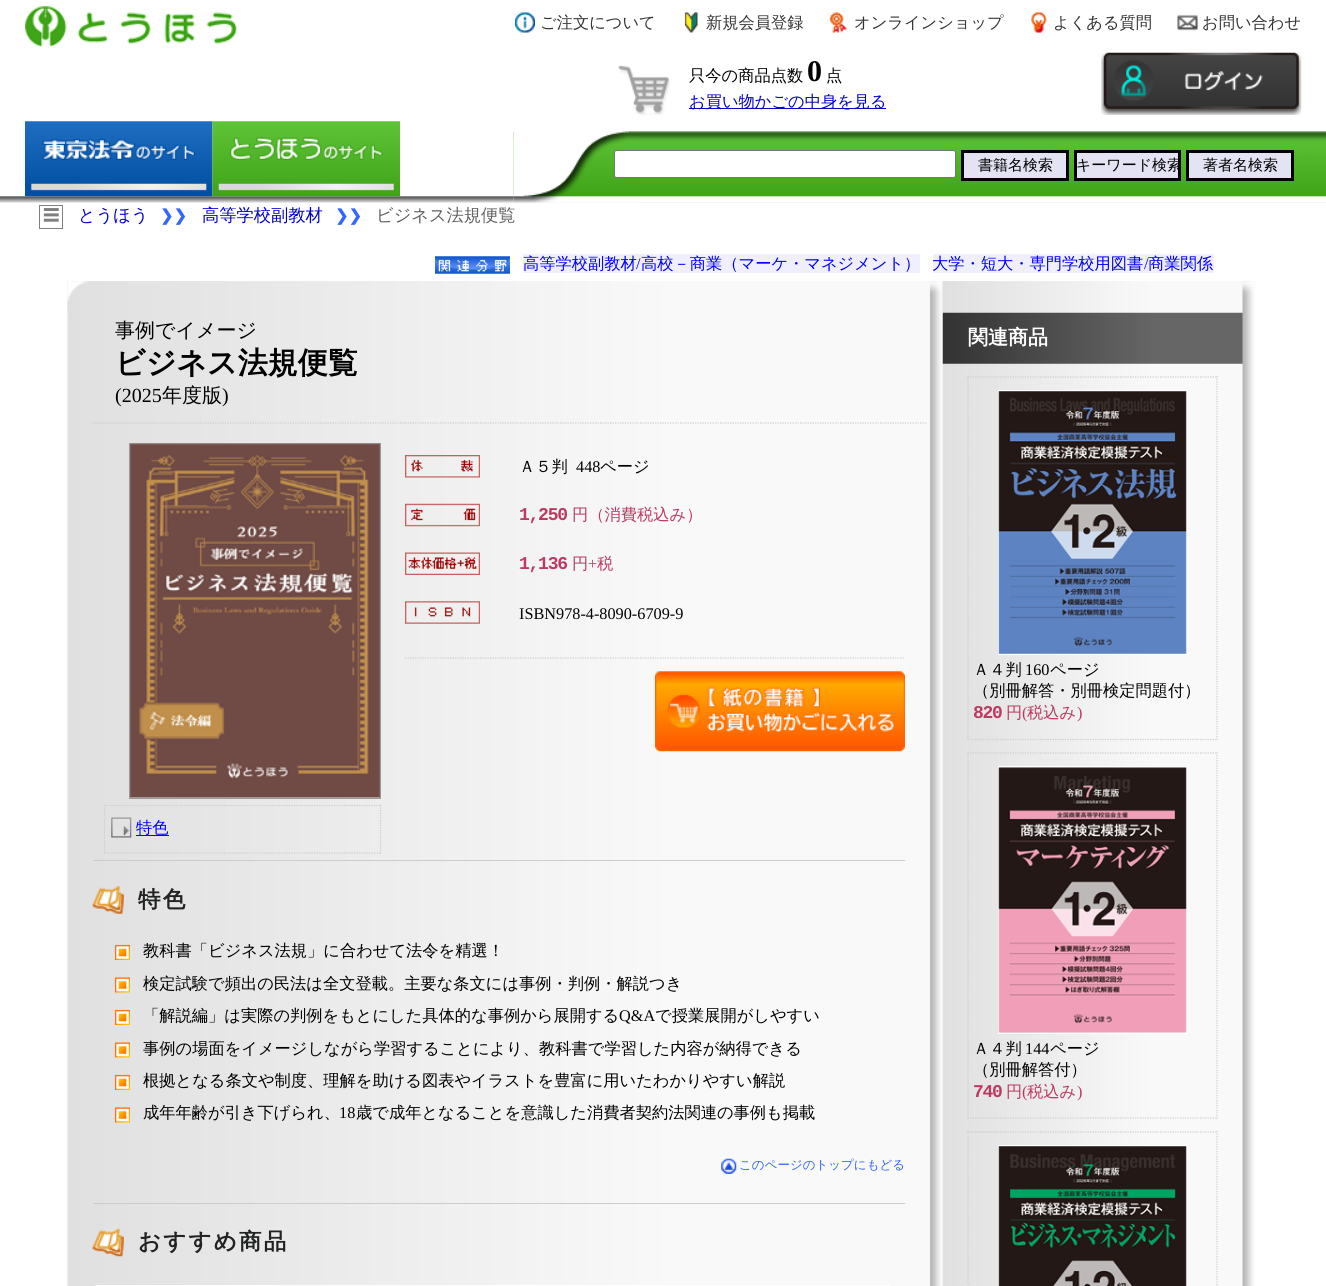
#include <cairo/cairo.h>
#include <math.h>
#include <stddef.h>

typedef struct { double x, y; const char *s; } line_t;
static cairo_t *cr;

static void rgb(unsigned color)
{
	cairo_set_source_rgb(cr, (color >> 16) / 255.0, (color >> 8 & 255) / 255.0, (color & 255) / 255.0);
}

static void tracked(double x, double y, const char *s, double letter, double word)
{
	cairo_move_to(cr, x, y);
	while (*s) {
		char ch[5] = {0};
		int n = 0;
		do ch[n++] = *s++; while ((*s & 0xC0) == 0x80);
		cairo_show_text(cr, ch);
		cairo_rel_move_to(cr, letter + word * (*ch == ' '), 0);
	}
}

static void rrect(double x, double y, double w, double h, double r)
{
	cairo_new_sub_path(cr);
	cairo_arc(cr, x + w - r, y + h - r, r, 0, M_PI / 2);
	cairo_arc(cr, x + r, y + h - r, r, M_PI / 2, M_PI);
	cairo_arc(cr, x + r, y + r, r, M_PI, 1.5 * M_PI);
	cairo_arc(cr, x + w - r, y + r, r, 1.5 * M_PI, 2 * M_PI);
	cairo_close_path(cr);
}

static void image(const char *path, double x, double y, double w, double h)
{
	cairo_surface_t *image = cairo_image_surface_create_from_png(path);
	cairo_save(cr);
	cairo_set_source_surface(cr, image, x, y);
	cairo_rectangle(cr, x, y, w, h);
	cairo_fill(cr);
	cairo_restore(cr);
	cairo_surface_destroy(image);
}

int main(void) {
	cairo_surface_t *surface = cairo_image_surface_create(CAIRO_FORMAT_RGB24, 1326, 1286);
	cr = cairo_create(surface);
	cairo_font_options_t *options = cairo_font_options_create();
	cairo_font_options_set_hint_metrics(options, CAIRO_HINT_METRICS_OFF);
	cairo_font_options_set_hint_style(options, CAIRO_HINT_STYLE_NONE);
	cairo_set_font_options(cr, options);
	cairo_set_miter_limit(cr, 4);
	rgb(0xffffff);
	cairo_paint(cr);
	image("img/1.png", 25, 6, 212, 41);
	image("img/2.png", 515, 12, 20, 21);
	image("img/3.png", 684, 12, 14, 21);
	image("img/4.png", 829, 12, 18, 21);
	image("img/5.png", 1031, 12, 16, 21);
	image("img/6.png", 1177, 14, 21, 17);
	image("img/7.png", 0, 196, 1326, 7);
	image("img/8.png", 25, 121, 188, 76);
	image("img/9.png", 212, 121, 188, 76);
	image("img/10.png", 513, 131, 813, 72);
	image("img/11.png", 618, 65, 53, 50);
	rgb(0x0000cc);
	cairo_rectangle(cr, 689, 108, 197, 1);
	cairo_fill(cr);
	image("img/12.png", 1101, 52, 201, 63);
	image("img/13.png", 513, 131, 126, 72);
	rgb(0xffffff);
	rrect(614.5, 150.5, 341, 27, 2);
	cairo_fill_preserve(cr);
	rgb(0x767676);
	cairo_set_line_width(cr, 1);
	cairo_stroke(cr);
	rgb(0xe3e3f3);
	cairo_rectangle(cr, 962.5, 151.5, 105, 28);
	cairo_fill_preserve(cr);
	rgb(0x000000);
	cairo_set_line_width(cr, 3);
	cairo_stroke(cr);
	rgb(0xe3e3f3);
	cairo_rectangle(cr, 1075.5, 151.5, 104, 28);
	cairo_fill_preserve(cr);
	rgb(0x000000);
	cairo_stroke(cr);
	rgb(0xe3e3f3);
	cairo_rectangle(cr, 1187.5, 151.5, 105, 28);
	cairo_fill_preserve(cr);
	rgb(0x000000);
	cairo_stroke(cr);
	cairo_rectangle(cr, 39.5, 205.5, 23, 23);
	rgb(0x808080);
	cairo_set_line_width(cr, 1);
	cairo_stroke(cr);
	image("img/14.png", 435, 256, 75, 18);
	rgb(0xefefff);
	cairo_rectangle(cr, 523, 254, 397, 19);
	cairo_fill(cr);
	cairo_rectangle(cr, 933, 254, 281, 19);
	cairo_fill(cr);
	image("img/29.png", 942, 281, 313, 1005);
	image("img/31.png", 942, 312, 301, 52);
	image("img/15.png", 67, 281, 876, 1005);
	image("img/16.png", 67, 281, 876, 32);
	cairo_new_path(cr);
	cairo_move_to(cr, 92.5, 423);
	cairo_line_to(cr, 927.5, 423);
	rgb(0xcccccc);
	cairo_set_line_width(cr, 1.2);
	cairo_set_dash(cr, (double[]){1.25, 1.25}, 2, 0);
	cairo_stroke(cr);
	cairo_new_path(cr);
	cairo_move_to(cr, 405, 658);
	cairo_line_to(cr, 905, 658);
	cairo_stroke(cr);
	image("img/17.png", 405, 455, 75, 23);
	image("img/18.png", 405, 503, 75, 24);
	image("img/19.png", 405, 552, 75, 23);
	image("img/20.png", 405, 601, 75, 23);
	image("img/21.png", 655, 671, 250, 81);
	cairo_rectangle(cr, 129.5, 443.5, 251, 355);
	rgb(0x999999);
	cairo_set_line_width(cr, 1);
	cairo_set_dash(cr, NULL, 0, 0);
	cairo_stroke(cr);
	image("img/22.png", 130, 443, 250, 355);
	cairo_new_path(cr);
	cairo_move_to(cr, 104, 805.5);
	cairo_line_to(cr, 381, 805.5);
	rgb(0xcccccc);
	cairo_set_line_width(cr, 1.2);
	cairo_set_dash(cr, (double[]){1.25, 1.25}, 2, 0);
	cairo_stroke(cr);
	cairo_new_path(cr);
	cairo_move_to(cr, 380.5, 805);
	cairo_line_to(cr, 380.5, 854);
	cairo_stroke(cr);
	cairo_new_path(cr);
	cairo_move_to(cr, 104, 853);
	cairo_line_to(cr, 381, 853);
	cairo_stroke(cr);
	cairo_new_path(cr);
	cairo_move_to(cr, 104.5, 805);
	cairo_line_to(cr, 104.5, 854);
	cairo_stroke(cr);
	image("img/23.png", 111, 817, 21, 21);
	rgb(0x0000ff);
	cairo_rectangle(cr, 136, 835, 33, 1);
	cairo_fill(cr);
	rgb(0xcccccc);
	cairo_rectangle(cr, 93, 860, 812, 1);
	cairo_fill(cr);
	image("img/24.png", 92, 886, 32, 28);
	image("img/25.png", 114, 944, 16, 16);
	image("img/26.png", 114, 977, 16, 16);
	image("img/25.png", 114, 1009, 16, 16);
	image("img/26.png", 114, 1042, 16, 16);
	image("img/25.png", 114, 1074, 16, 16);
	image("img/26.png", 114, 1107, 16, 16);
	image("img/27.png", 721, 1158, 16, 16);
	cairo_rectangle(cr, 93, 1203, 812, 1);
	cairo_fill(cr);
	image("img/28.png", 92, 1228, 32, 29);
	rrect(95.5, 1287.5, 795, 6, 2.5);
	rgb(0xffffff);
	cairo_set_line_width(cr, 5);
	cairo_set_dash(cr, NULL, 0, 0);
	cairo_stroke(cr);
	image("img/30.png", 942, 281, 312, 32);
	cairo_new_path(cr);
	cairo_move_to(cr, 967.5, 377);
	cairo_line_to(cr, 1217.5, 377);
	rgb(0xcccccc);
	cairo_set_line_width(cr, 1.2);
	cairo_set_dash(cr, (double[]){1.25, 1.25}, 2, 0);
	cairo_stroke(cr);
	cairo_new_path(cr);
	cairo_move_to(cr, 1217, 376);
	cairo_line_to(cr, 1217, 740);
	cairo_stroke(cr);
	cairo_new_path(cr);
	cairo_move_to(cr, 967.5, 739.5);
	cairo_line_to(cr, 1217.5, 739.5);
	cairo_stroke(cr);
	cairo_new_path(cr);
	cairo_move_to(cr, 968, 376);
	cairo_line_to(cr, 968, 740);
	cairo_stroke(cr);
	cairo_rectangle(cr, 998.5, 390.5, 189, 264);
	rgb(0xffffff);
	cairo_set_line_width(cr, 1);
	cairo_set_dash(cr, NULL, 0, 0);
	cairo_stroke(cr);
	image("img/32.png", 998, 391, 189, 263);
	cairo_new_path(cr);
	cairo_move_to(cr, 967.5, 753);
	cairo_line_to(cr, 1217.5, 753);
	rgb(0xcccccc);
	cairo_set_line_width(cr, 1.2);
	cairo_set_dash(cr, (double[]){1.25, 1.25}, 2, 0);
	cairo_stroke(cr);
	cairo_new_path(cr);
	cairo_move_to(cr, 1217, 752.5);
	cairo_line_to(cr, 1217, 1119);
	cairo_stroke(cr);
	cairo_new_path(cr);
	cairo_move_to(cr, 967.5, 1118);
	cairo_line_to(cr, 1217.5, 1118);
	cairo_stroke(cr);
	cairo_new_path(cr);
	cairo_move_to(cr, 968, 752.5);
	cairo_line_to(cr, 968, 1119);
	cairo_stroke(cr);
	cairo_rectangle(cr, 998.5, 766.5, 189, 267);
	rgb(0xffffff);
	cairo_set_line_width(cr, 1);
	cairo_set_dash(cr, NULL, 0, 0);
	cairo_stroke(cr);
	image("img/33.png", 998, 767, 189, 266);
	cairo_new_path(cr);
	cairo_move_to(cr, 967.5, 1132);
	cairo_line_to(cr, 1217.5, 1132);
	rgb(0xcccccc);
	cairo_set_line_width(cr, 1.2);
	cairo_set_dash(cr, (double[]){1.25, 1.25}, 2, 0);
	cairo_stroke(cr);
	cairo_new_path(cr);
	cairo_move_to(cr, 1217, 1131);
	cairo_line_to(cr, 1217, 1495);
	cairo_stroke(cr);
	cairo_new_path(cr);
	cairo_move_to(cr, 968, 1131);
	cairo_line_to(cr, 968, 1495);
	cairo_stroke(cr);
	cairo_rectangle(cr, 998.5, 1145.5, 189, 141);
	rgb(0xffffff);
	cairo_set_line_width(cr, 1);
	cairo_set_dash(cr, NULL, 0, 0);
	cairo_stroke(cr);
	image("img/34.png", 998, 1146, 189, 140);
	cairo_select_font_face(cr, "WenQuanYi Zen Hei Medium", CAIRO_FONT_SLANT_NORMAL, CAIRO_FONT_WEIGHT_NORMAL);
	cairo_set_font_size(cr, 16.25);
	rgb(0x333333);
	{
		static const line_t items[] = {
			{540, 28, "ご注文について"},
			{706, 28, "新規会員登録"},
			{854, 28, "オンラインショップ"},
			{1053, 28, "よくある質問"},
			{1202, 28, "お問い合わせ"},
		};
		for (size_t i = 0; i < sizeof items / sizeof *items; i++) {
			cairo_move_to(cr, items[i].x, items[i].y);
			cairo_show_text(cr, items[i].s);
		}
	}
	rgb(0x000000);
	cairo_move_to(cr, 689, 81);
	cairo_show_text(cr, "只今の商品点数");
	cairo_select_font_face(cr, "Liberation Serif", CAIRO_FONT_SLANT_NORMAL, CAIRO_FONT_WEIGHT_BOLD);
	cairo_set_font_size(cr, 30);
	cairo_move_to(cr, 807, 81);
	cairo_show_text(cr, "0");
	cairo_select_font_face(cr, "WenQuanYi Zen Hei Medium", CAIRO_FONT_SLANT_NORMAL, CAIRO_FONT_WEIGHT_NORMAL);
	cairo_set_font_size(cr, 16.25);
	cairo_move_to(cr, 826, 81);
	cairo_show_text(cr, "点");
	rgb(0x0000cc);
	cairo_move_to(cr, 689, 107);
	cairo_show_text(cr, "お買い物かごの中身を見る");
	cairo_set_font_size(cr, 15);
	rgb(0x000000);
	cairo_move_to(cr, 978, 170);
	cairo_show_text(cr, "書籍名検索");
	cairo_save(cr);
	cairo_rectangle(cr, 1076, 153, 103, 26);
	cairo_clip(cr);
	cairo_move_to(cr, 1076, 170);
	cairo_show_text(cr, "キーワード検索");
	cairo_restore(cr);
	cairo_move_to(cr, 1203, 170);
	cairo_show_text(cr, "著者名検索");
	cairo_select_font_face(cr, "WenQuanYi Zen Hei", CAIRO_FONT_SLANT_NORMAL, CAIRO_FONT_WEIGHT_BOLD);
	cairo_set_font_size(cr, 16);
	rgb(0x808080);
	cairo_move_to(cr, 43, 221);
	cairo_show_text(cr, "☰");
	cairo_select_font_face(cr, "WenQuanYi Zen Hei Medium", CAIRO_FONT_SLANT_NORMAL, CAIRO_FONT_WEIGHT_NORMAL);
	cairo_set_font_size(cr, 17.25);
	rgb(0x0000cc);
	cairo_move_to(cr, 78, 221);
	cairo_show_text(cr, "とうほう");
	cairo_select_font_face(cr, "DejaVu Sans", CAIRO_FONT_SLANT_NORMAL, CAIRO_FONT_WEIGHT_BOLD);
	cairo_set_font_size(cr, 16);
	rgb(0x3366ff);
	cairo_move_to(cr, 160, 221);
	cairo_show_text(cr, "❯❯");
	cairo_select_font_face(cr, "WenQuanYi Zen Hei Medium", CAIRO_FONT_SLANT_NORMAL, CAIRO_FONT_WEIGHT_NORMAL);
	cairo_set_font_size(cr, 17.25);
	rgb(0x0000cc);
	cairo_move_to(cr, 202, 221);
	cairo_show_text(cr, "高等学校副教材");
	cairo_select_font_face(cr, "DejaVu Sans", CAIRO_FONT_SLANT_NORMAL, CAIRO_FONT_WEIGHT_BOLD);
	cairo_set_font_size(cr, 16);
	rgb(0x3366ff);
	cairo_move_to(cr, 335, 221);
	cairo_show_text(cr, "❯❯");
	cairo_select_font_face(cr, "WenQuanYi Zen Hei Medium", CAIRO_FONT_SLANT_NORMAL, CAIRO_FONT_WEIGHT_NORMAL);
	cairo_set_font_size(cr, 17.25);
	rgb(0x606060);
	cairo_move_to(cr, 376, 221);
	cairo_show_text(cr, "ビジネス法規便覧");
	cairo_set_font_size(cr, 16.25);
	rgb(0x0000ff);
	cairo_move_to(cr, 523, 269);
	cairo_show_text(cr, "高等学校副教材");
	cairo_select_font_face(cr, "Liberation Serif", CAIRO_FONT_SLANT_NORMAL, CAIRO_FONT_WEIGHT_NORMAL);
	cairo_move_to(cr, 636, 269);
	cairo_show_text(cr, "/");
	cairo_select_font_face(cr, "WenQuanYi Zen Hei Medium", CAIRO_FONT_SLANT_NORMAL, CAIRO_FONT_WEIGHT_NORMAL);
	cairo_move_to(cr, 641, 269);
	cairo_show_text(cr, "高校－商業（マーケ・マネジメント）");
	cairo_move_to(cr, 932, 269);
	cairo_show_text(cr, "大学・短大・専門学校用図書");
	cairo_select_font_face(cr, "Liberation Serif", CAIRO_FONT_SLANT_NORMAL, CAIRO_FONT_WEIGHT_NORMAL);
	cairo_move_to(cr, 1144, 269);
	cairo_show_text(cr, "/");
	cairo_select_font_face(cr, "WenQuanYi Zen Hei Medium", CAIRO_FONT_SLANT_NORMAL, CAIRO_FONT_WEIGHT_NORMAL);
	cairo_move_to(cr, 1148, 269);
	cairo_show_text(cr, "商業関係");
	cairo_set_font_size(cr, 20);
	rgb(0x000000);
	cairo_move_to(cr, 115, 337);
	cairo_show_text(cr, "事例でイメージ");
	cairo_select_font_face(cr, "WenQuanYi Zen Hei", CAIRO_FONT_SLANT_NORMAL, CAIRO_FONT_WEIGHT_BOLD);
	cairo_set_font_size(cr, 30);
	cairo_move_to(cr, 115, 373);
	cairo_show_text(cr, "ビジネス法規便覧");
	cairo_select_font_face(cr, "Liberation Serif", CAIRO_FONT_SLANT_NORMAL, CAIRO_FONT_WEIGHT_NORMAL);
	cairo_set_font_size(cr, 20);
	cairo_move_to(cr, 115, 402);
	cairo_show_text(cr, "(2025");
	cairo_select_font_face(cr, "WenQuanYi Zen Hei Medium", CAIRO_FONT_SLANT_NORMAL, CAIRO_FONT_WEIGHT_NORMAL);
	cairo_move_to(cr, 162, 402);
	cairo_show_text(cr, "年度版");
	cairo_select_font_face(cr, "Liberation Serif", CAIRO_FONT_SLANT_NORMAL, CAIRO_FONT_WEIGHT_NORMAL);
	cairo_move_to(cr, 222, 402);
	cairo_show_text(cr, ")");
	cairo_select_font_face(cr, "WenQuanYi Zen Hei Medium", CAIRO_FONT_SLANT_NORMAL, CAIRO_FONT_WEIGHT_NORMAL);
	cairo_set_font_size(cr, 16.25);
	cairo_move_to(cr, 519, 472);
	cairo_show_text(cr, "Ａ５判");
	cairo_select_font_face(cr, "Liberation Serif", CAIRO_FONT_SLANT_NORMAL, CAIRO_FONT_WEIGHT_NORMAL);
	cairo_move_to(cr, 576, 472);
	cairo_show_text(cr, "448");
	cairo_select_font_face(cr, "WenQuanYi Zen Hei Medium", CAIRO_FONT_SLANT_NORMAL, CAIRO_FONT_WEIGHT_NORMAL);
	cairo_move_to(cr, 600, 472);
	cairo_show_text(cr, "ページ");
	cairo_select_font_face(cr, "Liberation Mono", CAIRO_FONT_SLANT_NORMAL, CAIRO_FONT_WEIGHT_BOLD);
	cairo_set_font_size(cr, 18);
	rgb(0xbc3a61);
	tracked(519, 520, "1,250", -1.25, 0);
	cairo_select_font_face(cr, "WenQuanYi Zen Hei Medium", CAIRO_FONT_SLANT_NORMAL, CAIRO_FONT_WEIGHT_NORMAL);
	cairo_set_font_size(cr, 16.25);
	cairo_move_to(cr, 572, 520);
	cairo_show_text(cr, "円（消費税込み）");
	cairo_select_font_face(cr, "Liberation Mono", CAIRO_FONT_SLANT_NORMAL, CAIRO_FONT_WEIGHT_BOLD);
	cairo_set_font_size(cr, 18);
	tracked(519, 569, "1,136", -1.25, 0);
	cairo_select_font_face(cr, "WenQuanYi Zen Hei Medium", CAIRO_FONT_SLANT_NORMAL, CAIRO_FONT_WEIGHT_NORMAL);
	cairo_set_font_size(cr, 16.25);
	cairo_move_to(cr, 572, 569);
	cairo_show_text(cr, "円");
	cairo_select_font_face(cr, "Liberation Serif", CAIRO_FONT_SLANT_NORMAL, CAIRO_FONT_WEIGHT_NORMAL);
	cairo_move_to(cr, 588, 569);
	cairo_show_text(cr, "+");
	cairo_select_font_face(cr, "WenQuanYi Zen Hei Medium", CAIRO_FONT_SLANT_NORMAL, CAIRO_FONT_WEIGHT_NORMAL);
	cairo_move_to(cr, 597, 569);
	cairo_show_text(cr, "税");
	cairo_select_font_face(cr, "Liberation Serif", CAIRO_FONT_SLANT_NORMAL, CAIRO_FONT_WEIGHT_NORMAL);
	rgb(0x000000);
	cairo_move_to(cr, 519, 619);
	cairo_show_text(cr, "ISBN978-4-8090-6709-9");
	cairo_select_font_face(cr, "WenQuanYi Zen Hei Medium", CAIRO_FONT_SLANT_NORMAL, CAIRO_FONT_WEIGHT_NORMAL);
	rgb(0x0000ff);
	cairo_move_to(cr, 136, 833);
	cairo_show_text(cr, "特色");
	cairo_select_font_face(cr, "WenQuanYi Zen Hei", CAIRO_FONT_SLANT_NORMAL, CAIRO_FONT_WEIGHT_BOLD);
	cairo_set_font_size(cr, 22.5);
	rgb(0x212222);
	tracked(138, 907, "特色", 2.25, 0);
	cairo_select_font_face(cr, "WenQuanYi Zen Hei Medium", CAIRO_FONT_SLANT_NORMAL, CAIRO_FONT_WEIGHT_NORMAL);
	cairo_set_font_size(cr, 16.25);
	rgb(0x000000);
	{
		static const line_t items[] = {
			{143, 956, "教科書「ビジネス法規」に合わせて法令を精選！"},
			{143, 989, "検定試験で頻出の民法は全文登載。主要な条文には事例・判例・解説つき"},
			{143, 1021, "「解説編」は実際の判例をもとにした具体的な事例から展開する"},
		};
		for (size_t i = 0; i < sizeof items / sizeof *items; i++) {
			cairo_move_to(cr, items[i].x, items[i].y);
			cairo_show_text(cr, items[i].s);
		}
	}
	cairo_select_font_face(cr, "Liberation Serif", CAIRO_FONT_SLANT_NORMAL, CAIRO_FONT_WEIGHT_NORMAL);
	cairo_move_to(cr, 619, 1021);
	cairo_show_text(cr, "Q&A");
	cairo_select_font_face(cr, "WenQuanYi Zen Hei Medium", CAIRO_FONT_SLANT_NORMAL, CAIRO_FONT_WEIGHT_NORMAL);
	{
		static const line_t items[] = {
			{655, 1021, "で授業展開がしやすい"},
			{143, 1054, "事例の場面をイメージしながら学習することにより、教科書で学習した内容が納得できる"},
			{143, 1086, "根拠となる条文や制度、理解を助ける図表やイラストを豊富に用いたわかりやすい解説"},
			{143, 1118, "成年年齢が引き下げられ、"},
		};
		for (size_t i = 0; i < sizeof items / sizeof *items; i++) {
			cairo_move_to(cr, items[i].x, items[i].y);
			cairo_show_text(cr, items[i].s);
		}
	}
	cairo_select_font_face(cr, "Liberation Serif", CAIRO_FONT_SLANT_NORMAL, CAIRO_FONT_WEIGHT_NORMAL);
	cairo_move_to(cr, 339, 1118);
	cairo_show_text(cr, "18");
	cairo_select_font_face(cr, "WenQuanYi Zen Hei Medium", CAIRO_FONT_SLANT_NORMAL, CAIRO_FONT_WEIGHT_NORMAL);
	cairo_move_to(cr, 356, 1118);
	cairo_show_text(cr, "歳で成年となることを意識した消費者契約法関連の事例も掲載");
	cairo_set_font_size(cr, 12.5);
	rgb(0x3366ff);
	cairo_move_to(cr, 739, 1169);
	cairo_show_text(cr, "このページのトップにもどる");
	cairo_select_font_face(cr, "WenQuanYi Zen Hei", CAIRO_FONT_SLANT_NORMAL, CAIRO_FONT_WEIGHT_BOLD);
	cairo_set_font_size(cr, 22.5);
	rgb(0x212222);
	tracked(138, 1249, "おすすめ商品", 2.25, 0);
	cairo_set_font_size(cr, 20);
	rgb(0xffffff);
	cairo_move_to(cr, 968, 344);
	cairo_show_text(cr, "関連商品");
	cairo_select_font_face(cr, "WenQuanYi Zen Hei Medium", CAIRO_FONT_SLANT_NORMAL, CAIRO_FONT_WEIGHT_NORMAL);
	cairo_set_font_size(cr, 16.25);
	rgb(0x000000);
	cairo_move_to(cr, 973, 675);
	cairo_show_text(cr, "Ａ４判");
	cairo_select_font_face(cr, "Liberation Serif", CAIRO_FONT_SLANT_NORMAL, CAIRO_FONT_WEIGHT_NORMAL);
	cairo_move_to(cr, 1025, 675);
	cairo_show_text(cr, "160");
	cairo_select_font_face(cr, "WenQuanYi Zen Hei Medium", CAIRO_FONT_SLANT_NORMAL, CAIRO_FONT_WEIGHT_NORMAL);
	cairo_move_to(cr, 1050, 675);
	cairo_show_text(cr, "ページ");
	cairo_move_to(cr, 973, 696);
	cairo_show_text(cr, "（別冊解答・別冊検定問題付）");
	cairo_select_font_face(cr, "Liberation Mono", CAIRO_FONT_SLANT_NORMAL, CAIRO_FONT_WEIGHT_BOLD);
	cairo_set_font_size(cr, 18);
	rgb(0xbc3a61);
	tracked(973, 718, "820", -1.25, 0);
	cairo_select_font_face(cr, "WenQuanYi Zen Hei Medium", CAIRO_FONT_SLANT_NORMAL, CAIRO_FONT_WEIGHT_NORMAL);
	cairo_set_font_size(cr, 16.25);
	cairo_move_to(cr, 1006, 718);
	cairo_show_text(cr, "円");
	cairo_select_font_face(cr, "Liberation Serif", CAIRO_FONT_SLANT_NORMAL, CAIRO_FONT_WEIGHT_NORMAL);
	cairo_move_to(cr, 1022, 718);
	cairo_show_text(cr, "(");
	cairo_select_font_face(cr, "WenQuanYi Zen Hei Medium", CAIRO_FONT_SLANT_NORMAL, CAIRO_FONT_WEIGHT_NORMAL);
	cairo_move_to(cr, 1027, 718);
	cairo_show_text(cr, "税込み");
	cairo_select_font_face(cr, "Liberation Serif", CAIRO_FONT_SLANT_NORMAL, CAIRO_FONT_WEIGHT_NORMAL);
	cairo_move_to(cr, 1077, 718);
	cairo_show_text(cr, ")");
	cairo_select_font_face(cr, "WenQuanYi Zen Hei Medium", CAIRO_FONT_SLANT_NORMAL, CAIRO_FONT_WEIGHT_NORMAL);
	rgb(0x000000);
	cairo_move_to(cr, 973, 1054);
	cairo_show_text(cr, "Ａ４判");
	cairo_select_font_face(cr, "Liberation Serif", CAIRO_FONT_SLANT_NORMAL, CAIRO_FONT_WEIGHT_NORMAL);
	cairo_move_to(cr, 1025, 1054);
	cairo_show_text(cr, "144");
	cairo_select_font_face(cr, "WenQuanYi Zen Hei Medium", CAIRO_FONT_SLANT_NORMAL, CAIRO_FONT_WEIGHT_NORMAL);
	cairo_move_to(cr, 1050, 1054);
	cairo_show_text(cr, "ページ");
	cairo_move_to(cr, 973, 1075);
	cairo_show_text(cr, "（別冊解答付）");
	cairo_select_font_face(cr, "Liberation Mono", CAIRO_FONT_SLANT_NORMAL, CAIRO_FONT_WEIGHT_BOLD);
	cairo_set_font_size(cr, 18);
	rgb(0xbc3a61);
	tracked(973, 1097, "740", -1.25, 0);
	cairo_select_font_face(cr, "WenQuanYi Zen Hei Medium", CAIRO_FONT_SLANT_NORMAL, CAIRO_FONT_WEIGHT_NORMAL);
	cairo_set_font_size(cr, 16.25);
	cairo_move_to(cr, 1006, 1097);
	cairo_show_text(cr, "円");
	cairo_select_font_face(cr, "Liberation Serif", CAIRO_FONT_SLANT_NORMAL, CAIRO_FONT_WEIGHT_NORMAL);
	cairo_move_to(cr, 1022, 1097);
	cairo_show_text(cr, "(");
	cairo_select_font_face(cr, "WenQuanYi Zen Hei Medium", CAIRO_FONT_SLANT_NORMAL, CAIRO_FONT_WEIGHT_NORMAL);
	cairo_move_to(cr, 1027, 1097);
	cairo_show_text(cr, "税込み");
	cairo_select_font_face(cr, "Liberation Serif", CAIRO_FONT_SLANT_NORMAL, CAIRO_FONT_WEIGHT_NORMAL);
	cairo_move_to(cr, 1077, 1097);
	cairo_show_text(cr, ")");
	cairo_surface_write_to_png(surface, "page.png");
	cairo_font_options_destroy(options);
	cairo_destroy(cr);
	cairo_surface_destroy(surface);
	return 0;
}
